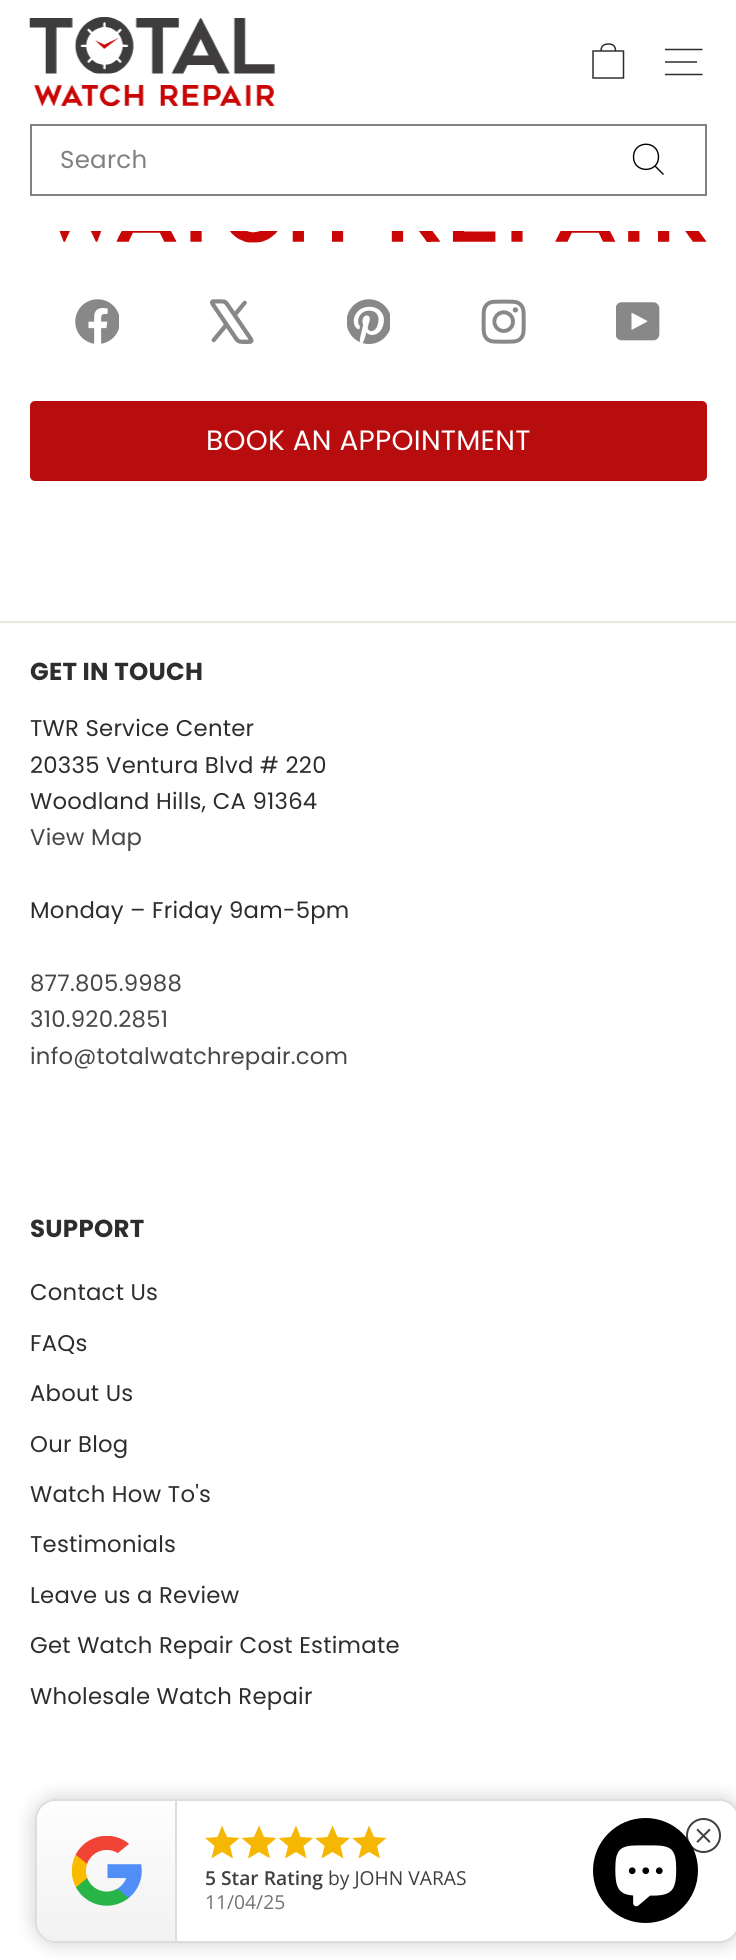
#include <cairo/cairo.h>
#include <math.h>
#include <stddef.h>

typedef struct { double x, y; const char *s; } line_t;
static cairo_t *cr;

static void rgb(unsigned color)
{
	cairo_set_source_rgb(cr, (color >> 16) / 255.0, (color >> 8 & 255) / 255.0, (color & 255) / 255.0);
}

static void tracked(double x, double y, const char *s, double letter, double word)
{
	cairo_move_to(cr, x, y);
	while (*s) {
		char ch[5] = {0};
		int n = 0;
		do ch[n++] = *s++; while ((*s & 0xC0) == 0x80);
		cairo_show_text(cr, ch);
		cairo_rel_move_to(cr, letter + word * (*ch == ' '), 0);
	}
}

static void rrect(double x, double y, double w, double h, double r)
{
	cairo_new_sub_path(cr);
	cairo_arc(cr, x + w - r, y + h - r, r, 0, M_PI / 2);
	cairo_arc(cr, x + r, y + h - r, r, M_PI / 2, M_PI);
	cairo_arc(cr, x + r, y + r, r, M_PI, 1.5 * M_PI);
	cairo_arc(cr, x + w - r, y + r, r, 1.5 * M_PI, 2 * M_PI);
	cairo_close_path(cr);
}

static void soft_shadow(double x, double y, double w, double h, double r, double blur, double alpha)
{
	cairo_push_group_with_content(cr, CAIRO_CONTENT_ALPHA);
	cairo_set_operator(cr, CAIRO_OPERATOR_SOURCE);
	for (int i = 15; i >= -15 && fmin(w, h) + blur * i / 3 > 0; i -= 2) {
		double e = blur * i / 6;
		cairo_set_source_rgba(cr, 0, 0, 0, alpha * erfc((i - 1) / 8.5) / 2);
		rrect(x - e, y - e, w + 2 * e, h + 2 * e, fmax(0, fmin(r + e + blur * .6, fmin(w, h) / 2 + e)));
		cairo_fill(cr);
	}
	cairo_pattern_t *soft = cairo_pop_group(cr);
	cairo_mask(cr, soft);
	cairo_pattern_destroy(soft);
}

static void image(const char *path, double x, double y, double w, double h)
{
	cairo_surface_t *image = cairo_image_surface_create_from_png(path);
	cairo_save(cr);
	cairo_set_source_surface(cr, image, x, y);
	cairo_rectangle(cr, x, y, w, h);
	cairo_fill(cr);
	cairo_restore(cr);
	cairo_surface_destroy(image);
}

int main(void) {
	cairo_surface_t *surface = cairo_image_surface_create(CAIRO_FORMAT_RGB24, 736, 1960);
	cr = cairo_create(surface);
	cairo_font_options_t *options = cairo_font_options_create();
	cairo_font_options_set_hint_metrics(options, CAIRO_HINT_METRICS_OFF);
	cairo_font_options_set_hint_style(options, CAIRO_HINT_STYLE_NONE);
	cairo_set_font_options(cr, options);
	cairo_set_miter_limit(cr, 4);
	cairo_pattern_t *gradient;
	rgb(0xffffff);
	cairo_paint(cr);
	image("img/1.png", 29, 17, 246, 89);
	cairo_new_path(cr);
	cairo_move_to(cr, 601, 51);
	cairo_curve_to(cr, 601, 45.5, 604.5, 44, 608.5, 44);
	cairo_curve_to(cr, 612.5, 44, 615.5, 45.5, 615.5, 51);
	cairo_move_to(cr, 593, 51);
	cairo_line_to(cr, 623.5, 51);
	cairo_line_to(cr, 623.5, 78);
	cairo_line_to(cr, 593, 78);
	cairo_close_path(cr);
	rgb(0x2d2d2d);
	cairo_set_line_width(cr, 1.5);
	cairo_stroke(cr);
	cairo_new_path(cr);
	cairo_move_to(cr, 665, 49.5);
	cairo_line_to(cr, 702.5, 49.5);
	cairo_stroke(cr);
	rgb(0x626262);
	cairo_rectangle(cr, 665, 61, 32, 2);
	cairo_fill(cr);
	cairo_new_path(cr);
	cairo_move_to(cr, 665, 74.5);
	cairo_line_to(cr, 702.5, 74.5);
	rgb(0x2d2d2d);
	cairo_stroke(cr);
	cairo_rectangle(cr, 31, 125, 675, 70);
	rgb(0x818181);
	cairo_set_line_width(cr, 2);
	cairo_stroke(cr);
	cairo_new_path(cr);
	cairo_move_to(cr, 658.5, 157);
	cairo_curve_to(cr, 658.5, 173.5, 633.5, 173.5, 633.5, 157);
	cairo_curve_to(cr, 633.5, 140, 658.5, 140, 658.5, 157);
	cairo_move_to(cr, 663.5, 174.5);
	cairo_line_to(cr, 655, 166);
	rgb(0x000000);
	cairo_set_line_width(cr, 1.4);
	cairo_stroke(cr);
	image("img/2.png", 59, 231, 648, 12);
	image("img/3.png", 75, 299, 44, 45);
	image("img/4.png", 210, 299, 44, 45);
	image("img/5.png", 347, 299, 43, 45);
	image("img/6.png", 481, 299, 45, 45);
	image("img/7.png", 616, 302, 44, 39);
	rgb(0xb70d0e);
	rrect(30, 401, 677, 80, 5);
	cairo_fill(cr);
	rgb(0xe8e8e1);
	cairo_rectangle(cr, 0, 621, 736, 2);
	cairo_fill(cr);
	rgb(0x000000);
	soft_shadow(32, 1796, 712, 150, 25, 9, 0.15);
	rgb(0xffffff);
	rrect(36, 1800, 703, 142, 20);
	cairo_fill_preserve(cr);
	rgb(0xdddddd);
	cairo_set_line_width(cr, 2);
	cairo_stroke(cr);
	gradient = cairo_pattern_create_linear(106, 1801, 106, 1941);
	cairo_pattern_add_color_stop_rgba(gradient, 0, 0.996, 0.996, 0.996, 1);
	cairo_pattern_add_color_stop_rgba(gradient, 1, 0.949, 0.949, 0.949, 1);
	cairo_set_source(cr, gradient);
	cairo_pattern_destroy(gradient);
	cairo_new_path(cr);
	cairo_move_to(cr, 56, 1801);
	cairo_line_to(cr, 177, 1801);
	cairo_line_to(cr, 177, 1941);
	cairo_line_to(cr, 56, 1941);
	cairo_curve_to(cr, 45.5, 1941, 37, 1932.5, 37, 1922);
	cairo_line_to(cr, 37, 1820);
	cairo_curve_to(cr, 37, 1809.5, 45.5, 1801, 56, 1801);
	cairo_close_path(cr);
	cairo_fill(cr);
	rgb(0xdddddd);
	cairo_rectangle(cr, 175, 1801, 2, 140);
	cairo_fill(cr);
	image("img/8.png", 72, 1836, 70, 70);
	rgb(0xf6b702);
	cairo_new_path(cr);
	cairo_move_to(cr, 222, 1852);
	cairo_line_to(cr, 211.5, 1858.5);
	cairo_line_to(cr, 214.5, 1846);
	cairo_line_to(cr, 205, 1838);
	cairo_line_to(cr, 217.5, 1837);
	cairo_line_to(cr, 222, 1825.5);
	cairo_line_to(cr, 227, 1837);
	cairo_line_to(cr, 239.5, 1838);
	cairo_line_to(cr, 230, 1846);
	cairo_line_to(cr, 233, 1858.5);
	cairo_close_path(cr);
	cairo_fill(cr);
	cairo_new_path(cr);
	cairo_move_to(cr, 259, 1852);
	cairo_line_to(cr, 248, 1858.5);
	cairo_line_to(cr, 251, 1846);
	cairo_line_to(cr, 241.5, 1838);
	cairo_line_to(cr, 254, 1837);
	cairo_line_to(cr, 259, 1825.5);
	cairo_line_to(cr, 264, 1837);
	cairo_line_to(cr, 276.5, 1838);
	cairo_line_to(cr, 267, 1846);
	cairo_line_to(cr, 270, 1858.5);
	cairo_close_path(cr);
	cairo_fill(cr);
	cairo_new_path(cr);
	cairo_move_to(cr, 296, 1852);
	cairo_line_to(cr, 285, 1858.5);
	cairo_line_to(cr, 288, 1846);
	cairo_line_to(cr, 278.5, 1838);
	cairo_line_to(cr, 291, 1837);
	cairo_line_to(cr, 296, 1825.5);
	cairo_line_to(cr, 300.5, 1837);
	cairo_line_to(cr, 313, 1838);
	cairo_line_to(cr, 303.5, 1846);
	cairo_line_to(cr, 306.5, 1858.5);
	cairo_close_path(cr);
	cairo_fill(cr);
	cairo_new_path(cr);
	cairo_move_to(cr, 332.5, 1852);
	cairo_line_to(cr, 321.5, 1858.5);
	cairo_line_to(cr, 324.5, 1846);
	cairo_line_to(cr, 315, 1838);
	cairo_line_to(cr, 327.5, 1837);
	cairo_line_to(cr, 332.5, 1825.5);
	cairo_line_to(cr, 337.5, 1837);
	cairo_line_to(cr, 350, 1838);
	cairo_line_to(cr, 340.5, 1846);
	cairo_line_to(cr, 343.5, 1858.5);
	cairo_close_path(cr);
	cairo_fill(cr);
	cairo_new_path(cr);
	cairo_move_to(cr, 369, 1852);
	cairo_line_to(cr, 358.5, 1858.5);
	cairo_line_to(cr, 361.5, 1846);
	cairo_line_to(cr, 352, 1838);
	cairo_line_to(cr, 364.5, 1837);
	cairo_line_to(cr, 369, 1825.5);
	cairo_line_to(cr, 374, 1837);
	cairo_line_to(cr, 386.5, 1838);
	cairo_line_to(cr, 377, 1846);
	cairo_line_to(cr, 380, 1858.5);
	cairo_close_path(cr);
	cairo_fill(cr);
	cairo_arc(cr, 703.5, 1835.5, 16.5, 0, 2 * M_PI);
	rgb(0x404040);
	cairo_stroke(cr);
	image("img/9.png", 696, 1828, 15, 15);
	rgb(0x000000);
	cairo_arc(cr, 645.5, 1870.5, 52.5, 0, 2 * M_PI);
	cairo_fill(cr);
	image("img/10.png", 615, 1845, 62, 62);
	cairo_select_font_face(cr, "Poppins", CAIRO_FONT_SLANT_NORMAL, CAIRO_FONT_WEIGHT_NORMAL);
	cairo_set_font_size(cr, 24.5);
	rgb(0x808080);
	tracked(60, 168, "Search", 0.25, 0);
	cairo_set_font_size(cr, 28);
	rgb(0xffffff);
	tracked(206, 450, "BOOK AN APPOINTMENT", 0.25, 0);
	cairo_select_font_face(cr, "Poppins", CAIRO_FONT_SLANT_NORMAL, CAIRO_FONT_WEIGHT_BOLD);
	cairo_set_font_size(cr, 24.5);
	rgb(0x2d2d2d);
	tracked(30, 680, "GET IN TOUCH", 0.25, 0);
	cairo_select_font_face(cr, "Poppins", CAIRO_FONT_SLANT_NORMAL, CAIRO_FONT_WEIGHT_NORMAL);
	cairo_set_font_size(cr, 22.75);
	{
		static const line_t items[] = {
			{30, 736, "TWR Service Center"},
			{30, 773, "20335 Ventura Blvd # 220"},
			{30, 809, "Woodland Hills, CA 91364"},
		};
		for (size_t i = 0; i < sizeof items / sizeof *items; i++) {
			tracked(items[i].x, items[i].y, items[i].s, 0.25, 0);
		}
	}
	rgb(0x474747);
	tracked(30, 845, "View Map", 0.25, 0);
	rgb(0x2d2d2d);
	tracked(30, 918, "Monday – Friday 9am-5pm", 0.25, 0);
	rgb(0x474747);
	{
		static const line_t items[] = {
			{30, 991, "877.805.9988"},
			{30, 1027, "310.920.2851"},
			{30, 1064, "info@totalwatchrepair.com"},
		};
		for (size_t i = 0; i < sizeof items / sizeof *items; i++) {
			tracked(items[i].x, items[i].y, items[i].s, 0.25, 0);
		}
	}
	cairo_select_font_face(cr, "Poppins", CAIRO_FONT_SLANT_NORMAL, CAIRO_FONT_WEIGHT_BOLD);
	cairo_set_font_size(cr, 24.5);
	rgb(0x2d2d2d);
	tracked(30, 1237, "SUPPORT", 0.25, 0);
	cairo_select_font_face(cr, "Poppins", CAIRO_FONT_SLANT_NORMAL, CAIRO_FONT_WEIGHT_NORMAL);
	cairo_set_font_size(cr, 22.75);
	{
		static const line_t items[] = {
			{30, 1300, "Contact Us"},
			{30, 1351, "FAQs"},
			{30, 1401, "About Us"},
			{30, 1452, "Our Blog"},
			{30, 1502, "Watch How To's"},
			{30, 1552, "Testimonials"},
			{30, 1603, "Leave us a Review"},
			{30, 1653, "Get Watch Repair Cost Estimate"},
			{30, 1704, "Wholesale Watch Repair"},
		};
		for (size_t i = 0; i < sizeof items / sizeof *items; i++) {
			tracked(items[i].x, items[i].y, items[i].s, 0.25, 0);
		}
	}
	cairo_select_font_face(cr, "Open Sans SemiBold", CAIRO_FONT_SLANT_NORMAL, CAIRO_FONT_WEIGHT_NORMAL);
	cairo_set_font_size(cr, 19.25);
	rgb(0x404040);
	cairo_move_to(cr, 205, 1885);
	cairo_show_text(cr, "5 Star Rating");
	cairo_select_font_face(cr, "Open Sans", CAIRO_FONT_SLANT_NORMAL, CAIRO_FONT_WEIGHT_NORMAL);
	cairo_move_to(cr, 328, 1885);
	cairo_show_text(cr, "by JOHN VARAS");
	rgb(0x737373);
	cairo_move_to(cr, 205, 1909);
	cairo_show_text(cr, "11/04/25");
	cairo_surface_write_to_png(surface, "page.png");
	cairo_font_options_destroy(options);
	cairo_destroy(cr);
	cairo_surface_destroy(surface);
	return 0;
}
